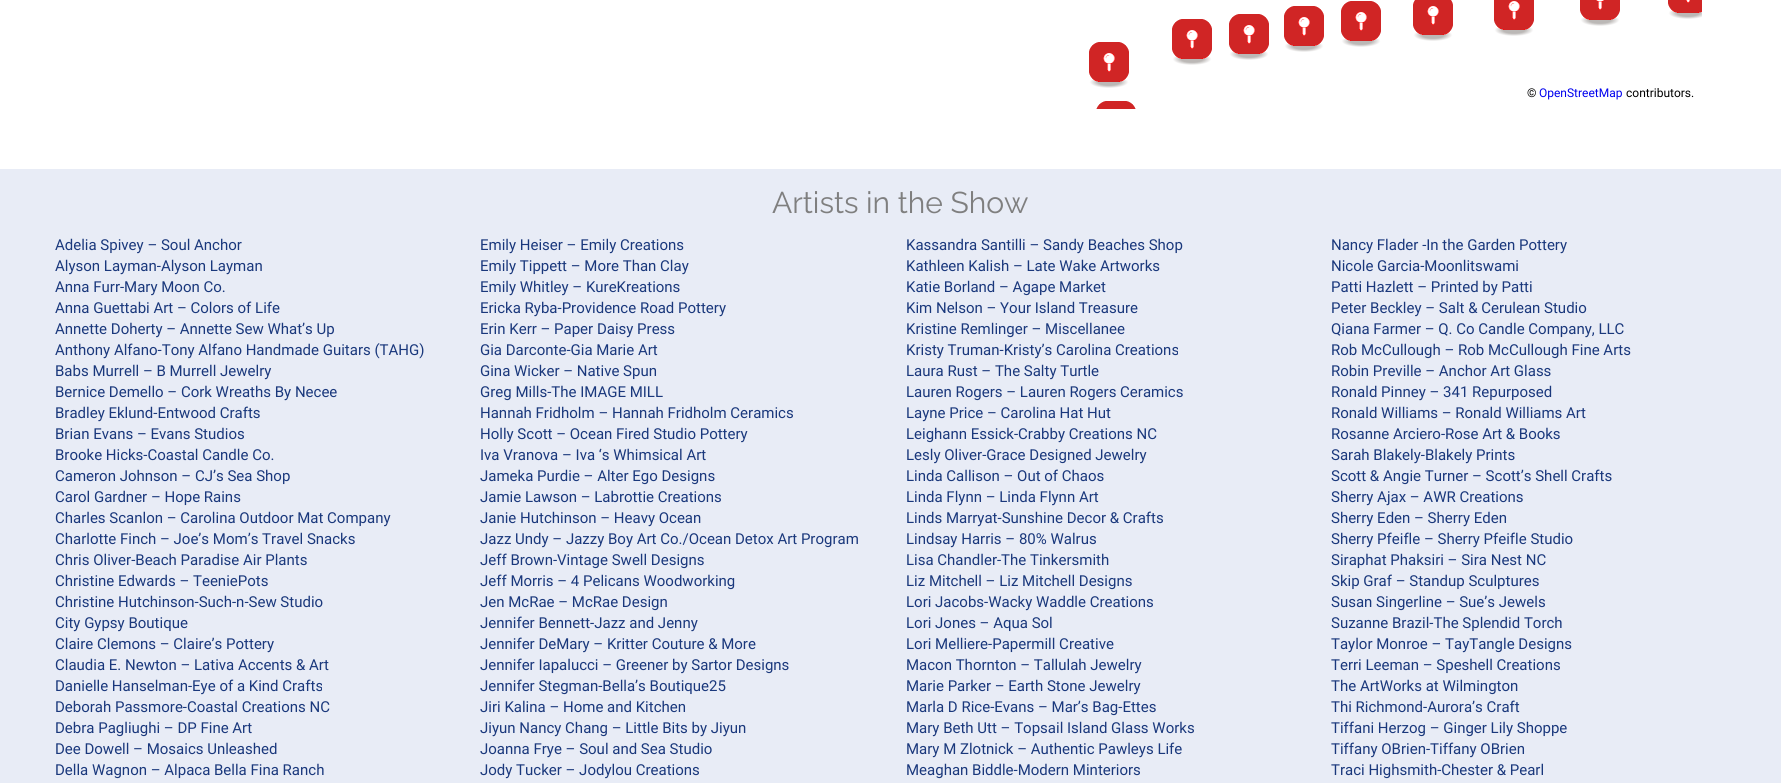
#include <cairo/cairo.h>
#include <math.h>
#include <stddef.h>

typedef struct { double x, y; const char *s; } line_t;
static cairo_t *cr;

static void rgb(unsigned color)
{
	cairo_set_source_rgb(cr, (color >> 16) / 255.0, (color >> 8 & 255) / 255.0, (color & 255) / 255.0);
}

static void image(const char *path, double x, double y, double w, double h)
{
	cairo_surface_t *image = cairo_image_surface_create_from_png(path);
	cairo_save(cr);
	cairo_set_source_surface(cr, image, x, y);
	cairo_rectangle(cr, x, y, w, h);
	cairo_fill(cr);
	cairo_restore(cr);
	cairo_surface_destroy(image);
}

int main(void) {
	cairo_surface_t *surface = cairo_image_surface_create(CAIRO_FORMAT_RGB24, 1781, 783);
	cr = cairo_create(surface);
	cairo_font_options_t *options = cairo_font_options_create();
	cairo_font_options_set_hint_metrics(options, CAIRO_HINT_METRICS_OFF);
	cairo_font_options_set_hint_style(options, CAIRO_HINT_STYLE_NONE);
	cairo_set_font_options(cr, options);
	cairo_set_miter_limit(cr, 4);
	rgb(0xffffff);
	cairo_paint(cr);
	image("img/1.png", 1089, 42, 40, 46);
	image("img/1.png", 1172, 19, 40, 46);
	image("img/1.png", 1229, 14, 40, 46);
	image("img/1.png", 1284, 6, 40, 46);
	image("img/1.png", 1341, 1, 40, 46);
	image("img/2.png", 1413, 0, 40, 41);
	image("img/3.png", 1494, 0, 40, 36);
	image("img/4.png", 1580, 0, 40, 26);
	image("img/5.png", 1668, 0, 34, 19);
	image("img/6.png", 1096, 101, 40, 8);
	rgb(0xe8ecf6);
	cairo_rectangle(cr, 0, 169, 1781, 614);
	cairo_fill(cr);
	cairo_select_font_face(cr, "Roboto", CAIRO_FONT_SLANT_NORMAL, CAIRO_FONT_WEIGHT_NORMAL);
	cairo_set_font_size(cr, 12);
	rgb(0x000000);
	cairo_move_to(cr, 1527, 97);
	cairo_show_text(cr, "©");
	rgb(0x0000ee);
	cairo_move_to(cr, 1539, 97);
	cairo_show_text(cr, "OpenStreetMap");
	rgb(0x000000);
	cairo_move_to(cr, 1626, 97);
	cairo_show_text(cr, "contributors.");
	cairo_select_font_face(cr, "Raleway", CAIRO_FONT_SLANT_NORMAL, CAIRO_FONT_WEIGHT_NORMAL);
	cairo_set_font_size(cr, 30);
	rgb(0x7f7f7f);
	cairo_move_to(cr, 772, 213);
	cairo_show_text(cr, "Artists in the Show");
	cairo_select_font_face(cr, "Roboto", CAIRO_FONT_SLANT_NORMAL, CAIRO_FONT_WEIGHT_NORMAL);
	cairo_set_font_size(cr, 15);
	rgb(0x1a387c);
	{
		static const line_t items[] = {
			{55, 250, "Adelia Spivey – Soul Anchor"},
			{480, 250, "Emily Heiser – Emily Creations"},
			{906, 250, "Kassandra Santilli – Sandy Beaches Shop"},
			{1331, 250, "Nancy Flader -In the Garden Pottery"},
			{55, 271, "Alyson Layman-Alyson Layman"},
			{480, 271, "Emily Tippett – More Than Clay"},
			{906, 271, "Kathleen Kalish – Late Wake Artworks"},
			{1331, 271, "Nicole Garcia-Moonlitswami"},
			{55, 292, "Anna Furr-Mary Moon Co."},
			{480, 292, "Emily Whitley – KureKreations"},
			{906, 292, "Katie Borland – Agape Market"},
			{1331, 292, "Patti Hazlett – Printed by Patti"},
			{55, 313, "Anna Guettabi Art – Colors of Life"},
			{480, 313, "Ericka Ryba-Providence Road Pottery"},
			{906, 313, "Kim Nelson – Your Island Treasure"},
			{1331, 313, "Peter Beckley – Salt & Cerulean Studio"},
			{55, 334, "Annette Doherty – Annette Sew What’s Up"},
			{480, 334, "Erin Kerr – Paper Daisy Press"},
			{906, 334, "Kristine Remlinger – Miscellanee"},
			{1331, 334, "Qiana Farmer – Q. Co Candle Company, LLC"},
			{55, 355, "Anthony Alfano-Tony Alfano Handmade Guitars (TAHG)"},
			{480, 355, "Gia Darconte-Gia Marie Art"},
			{906, 355, "Kristy Truman-Kristy’s Carolina Creations"},
			{1331, 355, "Rob McCullough – Rob McCullough Fine Arts"},
			{55, 376, "Babs Murrell – B Murrell Jewelry"},
			{480, 376, "Gina Wicker – Native Spun"},
			{906, 376, "Laura Rust – The Salty Turtle"},
			{1331, 376, "Robin Preville – Anchor Art Glass"},
			{55, 397, "Bernice Demello – Cork Wreaths By Necee"},
			{480, 397, "Greg Mills-The IMAGE MILL"},
			{906, 397, "Lauren Rogers – Lauren Rogers Ceramics"},
			{1331, 397, "Ronald Pinney – 341 Repurposed"},
			{55, 418, "Bradley Eklund-Entwood Crafts"},
			{480, 418, "Hannah Fridholm – Hannah Fridholm Ceramics"},
			{906, 418, "Layne Price – Carolina Hat Hut"},
			{1331, 418, "Ronald Williams – Ronald Williams Art"},
			{55, 439, "Brian Evans – Evans Studios"},
			{480, 439, "Holly Scott – Ocean Fired Studio Pottery"},
			{906, 439, "Leighann Essick-Crabby Creations NC"},
			{1331, 439, "Rosanne Arciero-Rose Art & Books"},
			{55, 460, "Brooke Hicks-Coastal Candle Co."},
			{480, 460, "Iva Vranova – Iva ‘s Whimsical Art"},
			{906, 460, "Lesly Oliver-Grace Designed Jewelry"},
			{1331, 460, "Sarah Blakely-Blakely Prints"},
			{55, 481, "Cameron Johnson – CJ’s Sea Shop"},
			{480, 481, "Jameka Purdie – Alter Ego Designs"},
			{906, 481, "Linda Callison – Out of Chaos"},
			{1331, 481, "Scott & Angie Turner – Scott’s Shell Crafts"},
			{55, 502, "Carol Gardner – Hope Rains"},
			{480, 502, "Jamie Lawson – Labrottie Creations"},
			{906, 502, "Linda Flynn – Linda Flynn Art"},
			{1331, 502, "Sherry Ajax – AWR Creations"},
			{55, 523, "Charles Scanlon – Carolina Outdoor Mat Company"},
			{480, 523, "Janie Hutchinson – Heavy Ocean"},
			{906, 523, "Linds Marryat-Sunshine Decor & Crafts"},
			{1331, 523, "Sherry Eden – Sherry Eden"},
			{55, 544, "Charlotte Finch – Joe’s Mom’s Travel Snacks"},
			{480, 544, "Jazz Undy – Jazzy Boy Art Co./Ocean Detox Art Program"},
			{906, 544, "Lindsay Harris – 80% Walrus"},
			{1331, 544, "Sherry Pfeifle – Sherry Pfeifle Studio"},
			{55, 565, "Chris Oliver-Beach Paradise Air Plants"},
			{480, 565, "Jeff Brown-Vintage Swell Designs"},
			{906, 565, "Lisa Chandler-The Tinkersmith"},
			{1331, 565, "Siraphat Phaksiri – Sira Nest NC"},
			{55, 586, "Christine Edwards – TeeniePots"},
			{480, 586, "Jeff Morris – 4 Pelicans Woodworking"},
			{906, 586, "Liz Mitchell – Liz Mitchell Designs"},
			{1331, 586, "Skip Graf – Standup Sculptures"},
			{55, 607, "Christine Hutchinson-Such-n-Sew Studio"},
			{480, 607, "Jen McRae – McRae Design"},
			{906, 607, "Lori Jacobs-Wacky Waddle Creations"},
			{1331, 607, "Susan Singerline – Sue’s Jewels"},
			{55, 628, "City Gypsy Boutique"},
			{480, 628, "Jennifer Bennett-Jazz and Jenny"},
			{906, 628, "Lori Jones – Aqua Sol"},
			{1331, 628, "Suzanne Brazil-The Splendid Torch"},
			{55, 649, "Claire Clemons – Claire’s Pottery"},
			{480, 649, "Jennifer DeMary – Kritter Couture & More"},
			{906, 649, "Lori Melliere-Papermill Creative"},
			{1331, 649, "Taylor Monroe – TayTangle Designs"},
			{55, 670, "Claudia E. Newton – Lativa Accents & Art"},
			{480, 670, "Jennifer Iapalucci – Greener by Sartor Designs"},
			{906, 670, "Macon Thornton – Tallulah Jewelry"},
			{1331, 670, "Terri Leeman – Speshell Creations"},
			{55, 691, "Danielle Hanselman-Eye of a Kind Crafts"},
			{480, 691, "Jennifer Stegman-Bella’s Boutique25"},
			{906, 691, "Marie Parker – Earth Stone Jewelry"},
			{1331, 691, "The ArtWorks at Wilmington"},
			{55, 712, "Deborah Passmore-Coastal Creations NC"},
			{480, 712, "Jiri Kalina – Home and Kitchen"},
			{906, 712, "Marla D Rice-Evans – Mar’s Bag-Ettes"},
			{1331, 712, "Thi Richmond-Aurora’s Craft"},
			{55, 733, "Debra Pagliughi – DP Fine Art"},
			{480, 733, "Jiyun Nancy Chang – Little Bits by Jiyun"},
			{906, 733, "Mary Beth Utt – Topsail Island Glass Works"},
			{1331, 733, "Tiffani Herzog – Ginger Lily Shoppe"},
			{55, 754, "Dee Dowell – Mosaics Unleashed"},
			{480, 754, "Joanna Frye – Soul and Sea Studio"},
			{906, 754, "Mary M Zlotnick – Authentic Pawleys Life"},
			{1331, 754, "Tiffany OBrien-Tiffany OBrien"},
			{55, 775, "Della Wagnon – Alpaca Bella Fina Ranch"},
			{480, 775, "Jody Tucker – Jodylou Creations"},
			{906, 775, "Meaghan Biddle-Modern Minteriors"},
			{1331, 775, "Traci Highsmith-Chester & Pearl"},
		};
		for (size_t i = 0; i < sizeof items / sizeof *items; i++) {
			cairo_move_to(cr, items[i].x, items[i].y);
			cairo_show_text(cr, items[i].s);
		}
	}
	cairo_surface_write_to_png(surface, "page.png");
	cairo_font_options_destroy(options);
	cairo_destroy(cr);
	cairo_surface_destroy(surface);
	return 0;
}
